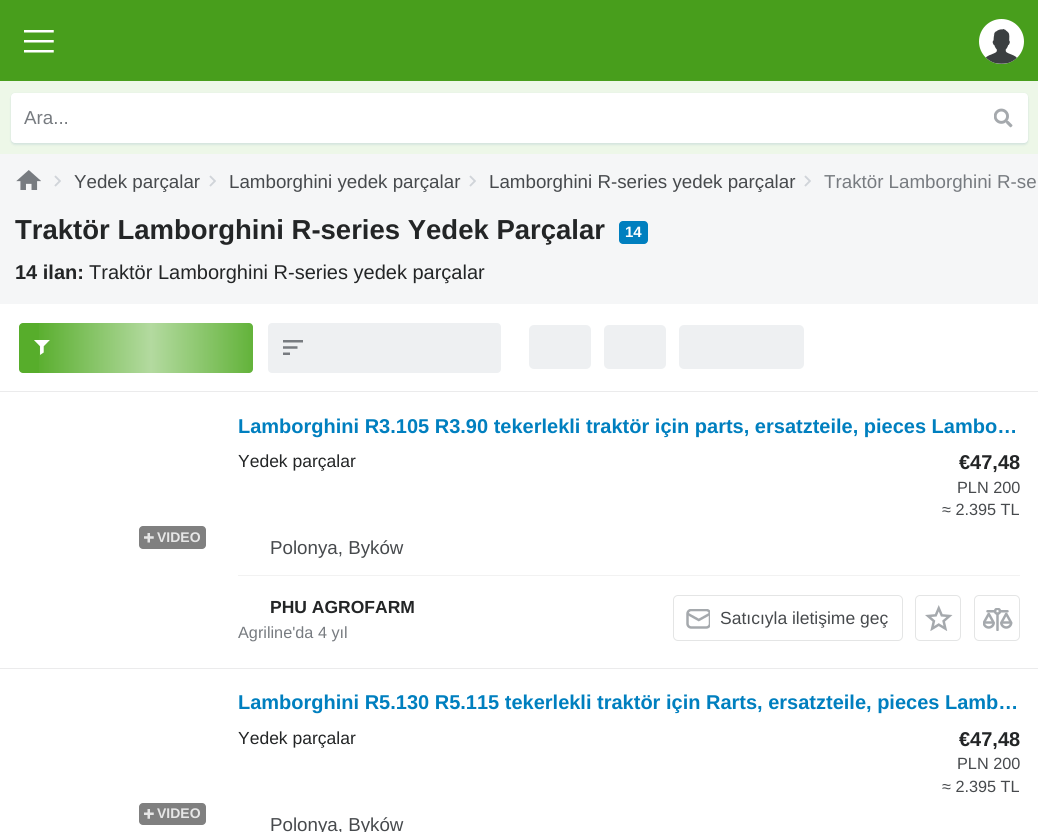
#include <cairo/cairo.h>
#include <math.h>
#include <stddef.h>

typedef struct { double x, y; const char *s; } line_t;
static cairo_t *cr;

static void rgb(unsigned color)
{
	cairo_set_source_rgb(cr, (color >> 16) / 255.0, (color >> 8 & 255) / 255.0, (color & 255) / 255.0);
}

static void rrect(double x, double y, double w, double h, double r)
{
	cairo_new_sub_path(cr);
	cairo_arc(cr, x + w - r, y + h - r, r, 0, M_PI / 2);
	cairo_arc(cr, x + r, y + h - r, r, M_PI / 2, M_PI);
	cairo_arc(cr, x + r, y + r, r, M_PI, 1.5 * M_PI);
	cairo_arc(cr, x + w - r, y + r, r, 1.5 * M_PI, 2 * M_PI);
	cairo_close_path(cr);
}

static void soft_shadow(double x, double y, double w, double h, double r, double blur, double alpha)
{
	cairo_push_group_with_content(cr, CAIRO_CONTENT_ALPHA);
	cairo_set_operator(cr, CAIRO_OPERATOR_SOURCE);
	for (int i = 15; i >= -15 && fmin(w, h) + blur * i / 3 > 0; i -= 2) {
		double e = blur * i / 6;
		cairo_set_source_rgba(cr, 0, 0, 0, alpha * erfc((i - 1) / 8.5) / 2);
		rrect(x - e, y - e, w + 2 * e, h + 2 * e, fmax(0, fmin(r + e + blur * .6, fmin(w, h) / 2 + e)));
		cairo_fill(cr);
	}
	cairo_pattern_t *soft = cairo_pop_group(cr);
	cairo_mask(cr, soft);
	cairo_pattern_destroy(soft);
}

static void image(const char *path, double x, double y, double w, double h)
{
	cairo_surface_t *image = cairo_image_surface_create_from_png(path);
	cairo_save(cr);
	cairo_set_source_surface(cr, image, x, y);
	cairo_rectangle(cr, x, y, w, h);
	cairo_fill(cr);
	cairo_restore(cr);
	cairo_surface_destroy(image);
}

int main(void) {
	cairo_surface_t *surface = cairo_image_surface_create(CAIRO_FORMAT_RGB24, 1038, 832);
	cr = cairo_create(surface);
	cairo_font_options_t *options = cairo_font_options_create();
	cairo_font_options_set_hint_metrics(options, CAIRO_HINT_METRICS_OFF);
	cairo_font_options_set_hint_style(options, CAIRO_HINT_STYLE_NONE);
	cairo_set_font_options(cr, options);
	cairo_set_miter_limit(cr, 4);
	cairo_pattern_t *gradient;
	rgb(0xf5f6f7);
	cairo_paint(cr);
	rgb(0x489e1c);
	cairo_rectangle(cr, 0, 0, 1038, 81);
	cairo_fill(cr);
	image("img/1.png", 24, 30, 30, 23);
	rgb(0xffffff);
	cairo_arc(cr, 1001.5, 41.5, 22.5, 0, 2 * M_PI);
	cairo_fill(cr);
	image("img/2.png", 985, 29, 32, 35);
	rgb(0xedf7e8);
	cairo_rectangle(cr, 0, 81, 1038, 73);
	cairo_fill(cr);
	rgb(0x17518c);
	soft_shadow(11, 93, 1017, 50, 4, 1, 0.05);
	soft_shadow(11, 95, 1017, 50, 4, 1, 0.1);
	rgb(0xffffff);
	rrect(11, 93, 1017, 50, 4);
	cairo_fill(cr);
	image("img/3.png", 994, 108, 19, 20);
	image("img/4.png", 16, 170, 25, 20);
	image("img/5.png", 54, 175, 7, 12);
	image("img/5.png", 209, 175, 7, 12);
	image("img/5.png", 469, 175, 7, 12);
	image("img/5.png", 804, 175, 7, 12);
	rgb(0x007fbf);
	rrect(619, 221, 29, 23, 4);
	cairo_fill(cr);
	rgb(0xffffff);
	cairo_rectangle(cr, 0, 304, 1038, 87);
	cairo_fill(cr);
	rgb(0x57ad2b);
	rrect(19, 323, 234, 50, 4);
	cairo_fill(cr);
	image("img/6.png", 34, 340, 16, 15);
	rgb(0xeef0f2);
	rrect(268, 323, 233, 50, 4);
	cairo_fill(cr);
	gradient = cairo_pattern_create_linear(34, 348, 268, 348);
	cairo_pattern_add_color_stop_rgba(gradient, 0, 1, 1, 1, 0);
	cairo_pattern_add_color_stop_rgba(gradient, 0.5, 1, 1, 1, 0.55);
	cairo_pattern_add_color_stop_rgba(gradient, 1, 1, 1, 1, 0);
	cairo_set_source(cr, gradient);
	cairo_pattern_destroy(gradient);
	cairo_rectangle(cr, 39, 323, 214, 50);
	cairo_fill(cr);
	image("img/7.png", 283, 340, 20, 15);
	rgb(0xeef0f2);
	rrect(529, 325, 62, 44, 5);
	cairo_fill(cr);
	rrect(604, 325, 62, 44, 5);
	cairo_fill(cr);
	rrect(679, 325, 125, 44, 5);
	cairo_fill(cr);
	rgb(0xffffff);
	cairo_rectangle(cr, 0, 392, 1038, 440);
	cairo_fill(cr);
	rgb(0xebebec);
	cairo_rectangle(cr, 0, 391, 1038, 1);
	cairo_fill(cr);
	rgb(0x808080);
	rrect(139, 526, 67, 23, 4);
	cairo_fill(cr);
	image("img/8.png", 144, 533, 10, 10);
	rgb(0xf2f2f2);
	cairo_rectangle(cr, 238, 575, 782, 1);
	cairo_fill(cr);
	rrect(673.5, 595.5, 229, 45, 4.5);
	rgb(0xe4e5e5);
	cairo_set_line_width(cr, 1);
	cairo_stroke(cr);
	image("img/9.png", 686, 609, 24, 20);
	rrect(915.5, 595.5, 45, 45, 4.5);
	cairo_stroke(cr);
	image("img/10.png", 925, 605, 28, 26);
	rrect(974.5, 595.5, 45, 45, 4.5);
	cairo_stroke(cr);
	image("img/11.png", 983, 608, 30, 23);
	rgb(0xebebec);
	cairo_rectangle(cr, 0, 668, 1038, 1);
	cairo_fill(cr);
	rgb(0x808080);
	rrect(139, 803, 67, 22, 4);
	cairo_fill(cr);
	image("img/12.png", 144, 809, 10, 10);
	cairo_select_font_face(cr, "Liberation Sans", CAIRO_FONT_SLANT_NORMAL, CAIRO_FONT_WEIGHT_NORMAL);
	cairo_set_font_size(cr, 18.75);
	rgb(0x777b80);
	cairo_move_to(cr, 24, 124);
	cairo_show_text(cr, "Ara...");
	rgb(0x474a4d);
	{
		static const line_t items[] = {
			{74, 188, "Yedek parçalar"},
			{229, 188, "Lamborghini yedek parçalar"},
			{489, 188, "Lamborghini R-series yedek parçalar"},
		};
		for (size_t i = 0; i < sizeof items / sizeof *items; i++) {
			cairo_move_to(cr, items[i].x, items[i].y);
			cairo_show_text(cr, items[i].s);
		}
	}
	rgb(0x777b80);
	cairo_move_to(cr, 824, 188);
	cairo_show_text(cr, "Traktör Lamborghini R-se");
	cairo_select_font_face(cr, "Liberation Sans", CAIRO_FONT_SLANT_NORMAL, CAIRO_FONT_WEIGHT_BOLD);
	cairo_set_font_size(cr, 27.5);
	rgb(0x232526);
	cairo_move_to(cr, 15, 239);
	cairo_show_text(cr, "Traktör Lamborghini R-series Yedek Parçalar");
	cairo_set_font_size(cr, 15);
	rgb(0xffffff);
	cairo_move_to(cr, 625, 237);
	cairo_show_text(cr, "14");
	cairo_set_font_size(cr, 20);
	rgb(0x232526);
	cairo_move_to(cr, 15, 279);
	cairo_show_text(cr, "14 ilan:");
	cairo_select_font_face(cr, "Liberation Sans", CAIRO_FONT_SLANT_NORMAL, CAIRO_FONT_WEIGHT_NORMAL);
	cairo_move_to(cr, 89, 279);
	cairo_show_text(cr, "Traktör Lamborghini R-series yedek parçalar");
	cairo_select_font_face(cr, "Liberation Sans", CAIRO_FONT_SLANT_NORMAL, CAIRO_FONT_WEIGHT_BOLD);
	cairo_set_font_size(cr, 14);
	rgb(0xe6e6e6);
	cairo_move_to(cr, 157, 542);
	cairo_show_text(cr, "VIDEO");
	cairo_set_font_size(cr, 20);
	rgb(0x007fbf);
	cairo_move_to(cr, 238, 433);
	cairo_show_text(cr, "Lamborghini R3.105 R3.90 tekerlekli traktör için parts, ersatzteile, pieces Lambo…");
	cairo_select_font_face(cr, "Liberation Sans", CAIRO_FONT_SLANT_NORMAL, CAIRO_FONT_WEIGHT_NORMAL);
	cairo_set_font_size(cr, 17.5);
	rgb(0x232526);
	cairo_move_to(cr, 238, 467);
	cairo_show_text(cr, "Yedek parçalar");
	cairo_select_font_face(cr, "Liberation Sans", CAIRO_FONT_SLANT_NORMAL, CAIRO_FONT_WEIGHT_BOLD);
	cairo_set_font_size(cr, 20);
	cairo_move_to(cr, 959, 469);
	cairo_show_text(cr, "€47,48");
	cairo_select_font_face(cr, "Liberation Sans", CAIRO_FONT_SLANT_NORMAL, CAIRO_FONT_WEIGHT_NORMAL);
	cairo_set_font_size(cr, 16.25);
	rgb(0x474a4d);
	cairo_move_to(cr, 957, 493);
	cairo_show_text(cr, "PLN 200");
	cairo_move_to(cr, 942, 515);
	cairo_show_text(cr, "≈ 2.395 TL");
	cairo_set_font_size(cr, 18.75);
	cairo_move_to(cr, 270, 554);
	cairo_show_text(cr, "Polonya, Byków");
	cairo_select_font_face(cr, "Liberation Sans", CAIRO_FONT_SLANT_NORMAL, CAIRO_FONT_WEIGHT_BOLD);
	cairo_set_font_size(cr, 17.5);
	rgb(0x232526);
	cairo_move_to(cr, 270, 613);
	cairo_show_text(cr, "PHU AGROFARM");
	cairo_select_font_face(cr, "Liberation Sans", CAIRO_FONT_SLANT_NORMAL, CAIRO_FONT_WEIGHT_NORMAL);
	cairo_set_font_size(cr, 16.25);
	rgb(0x777b80);
	cairo_move_to(cr, 238, 638);
	cairo_show_text(cr, "Agriline'da 4 yıl");
	cairo_set_font_size(cr, 17.5);
	rgb(0x474a4d);
	cairo_move_to(cr, 720, 624);
	cairo_show_text(cr, "Satıcıyla iletişime geç");
	cairo_select_font_face(cr, "Liberation Sans", CAIRO_FONT_SLANT_NORMAL, CAIRO_FONT_WEIGHT_BOLD);
	cairo_set_font_size(cr, 14);
	rgb(0xe6e6e6);
	cairo_move_to(cr, 157, 818);
	cairo_show_text(cr, "VIDEO");
	cairo_set_font_size(cr, 20);
	rgb(0x007fbf);
	cairo_move_to(cr, 238, 709);
	cairo_show_text(cr, "Lamborghini R5.130 R5.115 tekerlekli traktör için Rarts, ersatzteile, pieces Lamb…");
	cairo_select_font_face(cr, "Liberation Sans", CAIRO_FONT_SLANT_NORMAL, CAIRO_FONT_WEIGHT_NORMAL);
	cairo_set_font_size(cr, 17.5);
	rgb(0x232526);
	cairo_move_to(cr, 238, 744);
	cairo_show_text(cr, "Yedek parçalar");
	cairo_select_font_face(cr, "Liberation Sans", CAIRO_FONT_SLANT_NORMAL, CAIRO_FONT_WEIGHT_BOLD);
	cairo_set_font_size(cr, 20);
	cairo_move_to(cr, 959, 746);
	cairo_show_text(cr, "€47,48");
	cairo_select_font_face(cr, "Liberation Sans", CAIRO_FONT_SLANT_NORMAL, CAIRO_FONT_WEIGHT_NORMAL);
	cairo_set_font_size(cr, 16.25);
	rgb(0x474a4d);
	cairo_move_to(cr, 957, 769);
	cairo_show_text(cr, "PLN 200");
	cairo_move_to(cr, 942, 792);
	cairo_show_text(cr, "≈ 2.395 TL");
	cairo_set_font_size(cr, 18.75);
	cairo_move_to(cr, 270, 831);
	cairo_show_text(cr, "Polonya, Byków");
	cairo_surface_write_to_png(surface, "page.png");
	cairo_font_options_destroy(options);
	cairo_destroy(cr);
	cairo_surface_destroy(surface);
	return 0;
}
